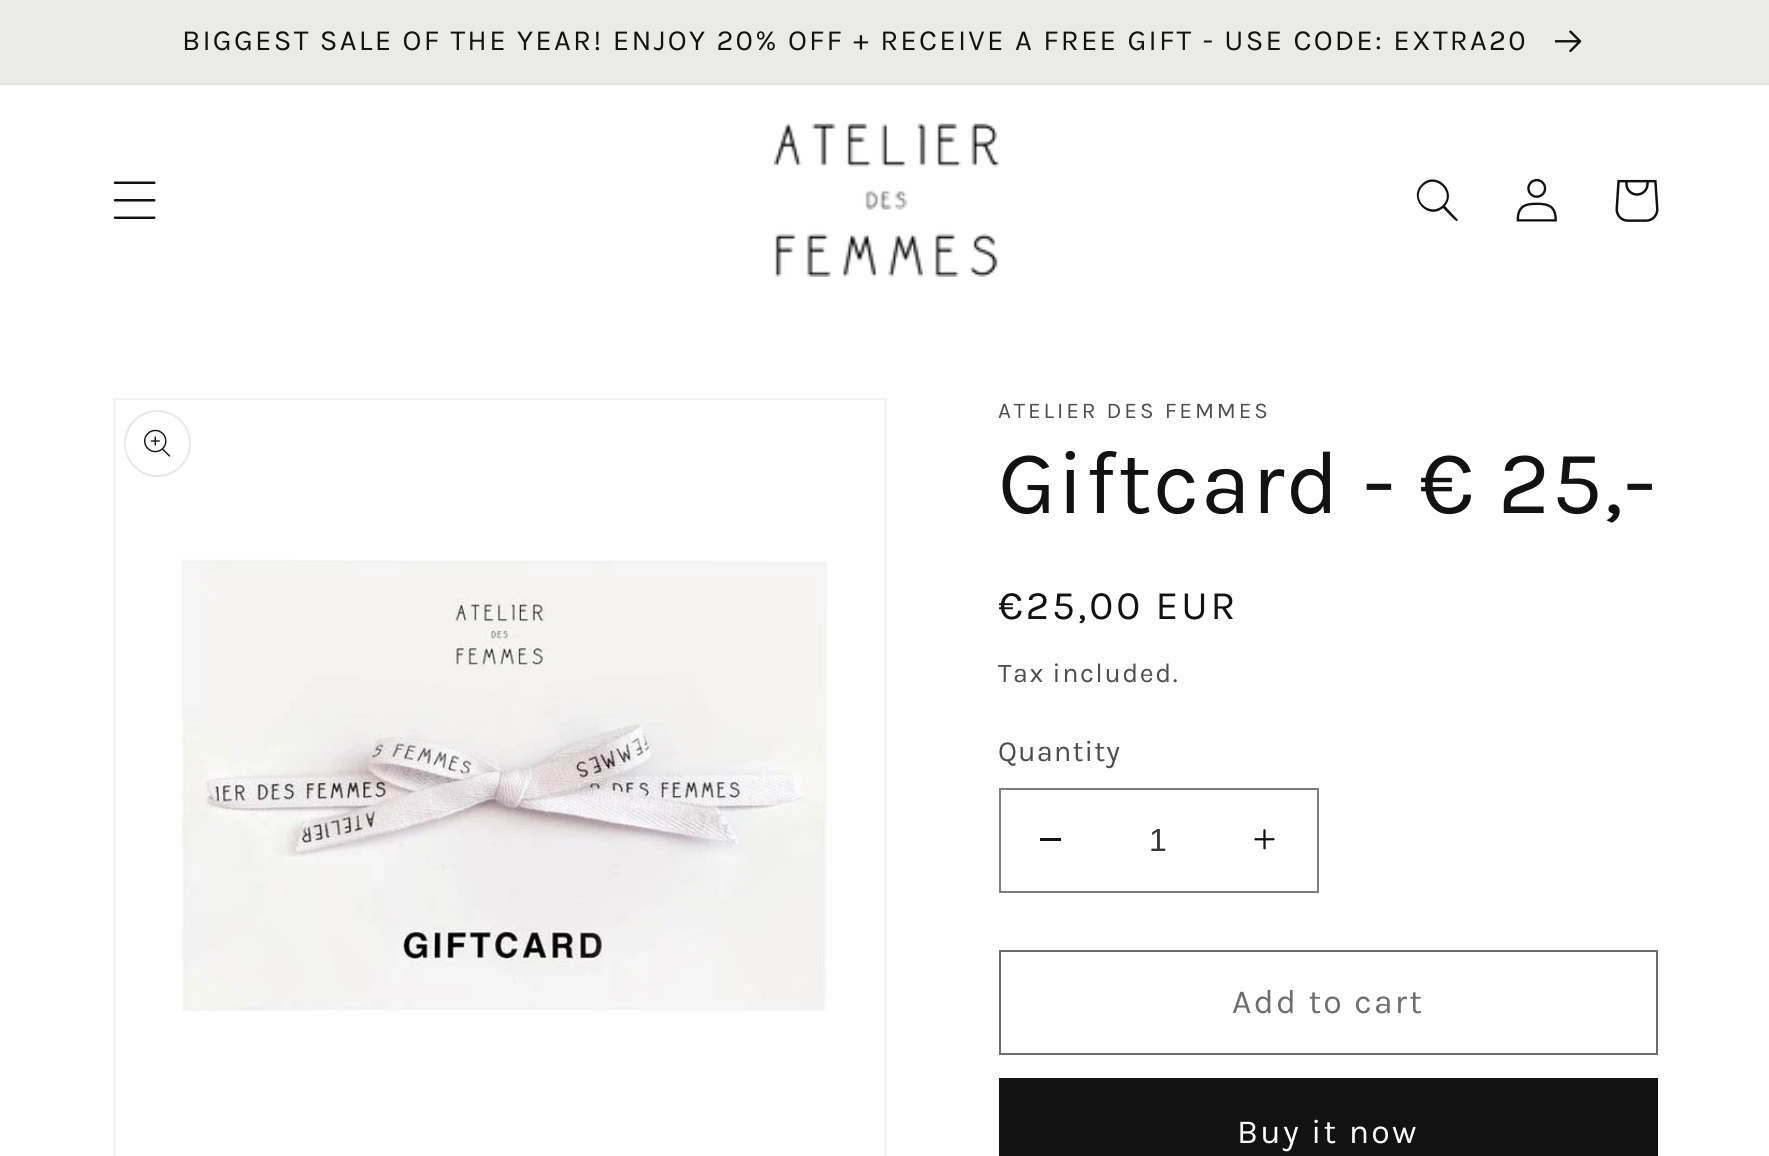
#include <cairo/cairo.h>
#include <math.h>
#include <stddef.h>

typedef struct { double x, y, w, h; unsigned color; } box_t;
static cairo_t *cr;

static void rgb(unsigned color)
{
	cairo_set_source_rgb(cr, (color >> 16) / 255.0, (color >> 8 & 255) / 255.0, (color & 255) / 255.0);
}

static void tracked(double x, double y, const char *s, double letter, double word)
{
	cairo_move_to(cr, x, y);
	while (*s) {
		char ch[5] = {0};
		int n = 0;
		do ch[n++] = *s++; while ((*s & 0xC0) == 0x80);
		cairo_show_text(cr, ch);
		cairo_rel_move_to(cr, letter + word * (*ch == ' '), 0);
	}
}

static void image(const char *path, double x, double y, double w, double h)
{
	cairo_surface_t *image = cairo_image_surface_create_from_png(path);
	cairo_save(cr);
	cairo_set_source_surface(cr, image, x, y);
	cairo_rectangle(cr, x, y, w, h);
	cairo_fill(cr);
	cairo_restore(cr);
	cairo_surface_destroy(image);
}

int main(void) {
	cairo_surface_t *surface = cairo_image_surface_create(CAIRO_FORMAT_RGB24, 1769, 1156);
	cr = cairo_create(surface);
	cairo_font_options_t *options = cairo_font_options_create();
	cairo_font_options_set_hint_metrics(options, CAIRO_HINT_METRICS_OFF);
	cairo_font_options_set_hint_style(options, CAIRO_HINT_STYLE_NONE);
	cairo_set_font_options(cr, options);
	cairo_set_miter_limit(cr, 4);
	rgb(0xffffff);
	cairo_paint(cr);
	{
		static const box_t items[] = {
			{0, 85, 1769, 1, 0xf8f7f3},
			{0, 83, 1769, 2, 0xe6e5e1},
			{0, 0, 1769, 83, 0xeaeae6},
		};
		for (size_t i = 0; i < sizeof items / sizeof *items; i++) {
			rgb(items[i].color);
			cairo_rectangle(cr, items[i].x, items[i].y, items[i].w, items[i].h);
			cairo_fill(cr);
		}
	}
	image("img/1.png", 1555, 30, 27, 22);
	image("img/2.png", 113, 181, 43, 38);
	image("img/3.png", 774, 123, 225, 154);
	rgb(0x121212);
	cairo_set_fill_rule(cr, CAIRO_FILL_RULE_EVEN_ODD);
	cairo_new_path(cr);
	cairo_move_to(cr, 1443, 205);
	cairo_curve_to(cr, 1430, 218, 1410, 199, 1423, 186);
	cairo_curve_to(cr, 1436, 173, 1455, 193, 1443, 205);
	cairo_close_path(cr);
	cairo_move_to(cr, 1443, 208);
	cairo_curve_to(cr, 1428, 221, 1407, 198, 1422, 184);
	cairo_curve_to(cr, 1436, 170, 1458, 191, 1445, 206);
	cairo_line_to(cr, 1458, 220);
	cairo_line_to(cr, 1457, 221);
	cairo_curve_to(cr, 1456, 222, 1445, 210, 1443, 208);
	cairo_close_path(cr);
	cairo_fill(cr);
	image("img/4.png", 1516, 178, 41, 44);
	image("img/5.png", 1615, 179, 44, 43);
	cairo_rectangle(cr, 114, 399, 772, 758);
	rgb(0xf3f3f3);
	cairo_stroke(cr);
	image("img/6.png", 181, 559, 647, 453);
	cairo_arc(cr, 157.5, 443.5, 32.5, 0, 2 * M_PI);
	rgb(0xe7e7e7);
	cairo_stroke(cr);
	image("img/7.png", 144, 429, 27, 28);
	rgb(0x121212);
	cairo_rectangle(cr, 1040, 838, 21, 3);
	cairo_fill(cr);
	image("img/8.png", 1254, 829, 21, 21);
	cairo_rectangle(cr, 1000, 789, 318, 103);
	rgb(0x7d7d7d);
	cairo_stroke(cr);
	cairo_rectangle(cr, 1000, 951, 657, 103);
	rgb(0x6d6d6d);
	cairo_stroke(cr);
	rgb(0x121212);
	cairo_rectangle(cr, 999, 1078, 659, 78);
	cairo_fill(cr);
	cairo_select_font_face(cr, "Karla", CAIRO_FONT_SLANT_NORMAL, CAIRO_FONT_WEIGHT_NORMAL);
	cairo_set_font_size(cr, 29.25);
	tracked(182, 50, "BIGGEST SALE OF THE YEAR! ENJOY 20% OFF + RECEIVE A FREE GIFT - USE CODE: EXTRA20", 2.25, 0);
	cairo_set_font_size(cr, 22.5);
	rgb(0x4d4d4d);
	tracked(998, 418, "ATELIER DES FEMMES", 2.9, 0);
	cairo_set_font_size(cr, 90);
	rgb(0x121212);
	tracked(998, 513, "Giftcard - € 25,-", 1.4, 0);
	cairo_set_font_size(cr, 40.5);
	tracked(998, 619, "€25,00 EUR", 2.9, 0);
	cairo_set_font_size(cr, 27);
	rgb(0x4d4d4d);
	tracked(998, 682, "Tax included.", 1.5, 0);
	cairo_set_font_size(cr, 29.25);
	tracked(998, 761, "Quantity", 1, 0);
	cairo_select_font_face(cr, "Liberation Sans", CAIRO_FONT_SLANT_NORMAL, CAIRO_FONT_WEIGHT_NORMAL);
	cairo_set_font_size(cr, 32);
	rgb(0x363636);
	cairo_move_to(cr, 1149, 851);
	cairo_show_text(cr, "1");
	cairo_select_font_face(cr, "Karla", CAIRO_FONT_SLANT_NORMAL, CAIRO_FONT_WEIGHT_NORMAL);
	cairo_set_font_size(cr, 33.75);
	rgb(0x6d6d6d);
	tracked(1232, 1013, "Add to cart", 2.25, 0);
	rgb(0xffffff);
	tracked(1237, 1143, "Buy it now", 2.25, 0);
	cairo_surface_write_to_png(surface, "page.png");
	cairo_font_options_destroy(options);
	cairo_destroy(cr);
	cairo_surface_destroy(surface);
	return 0;
}
